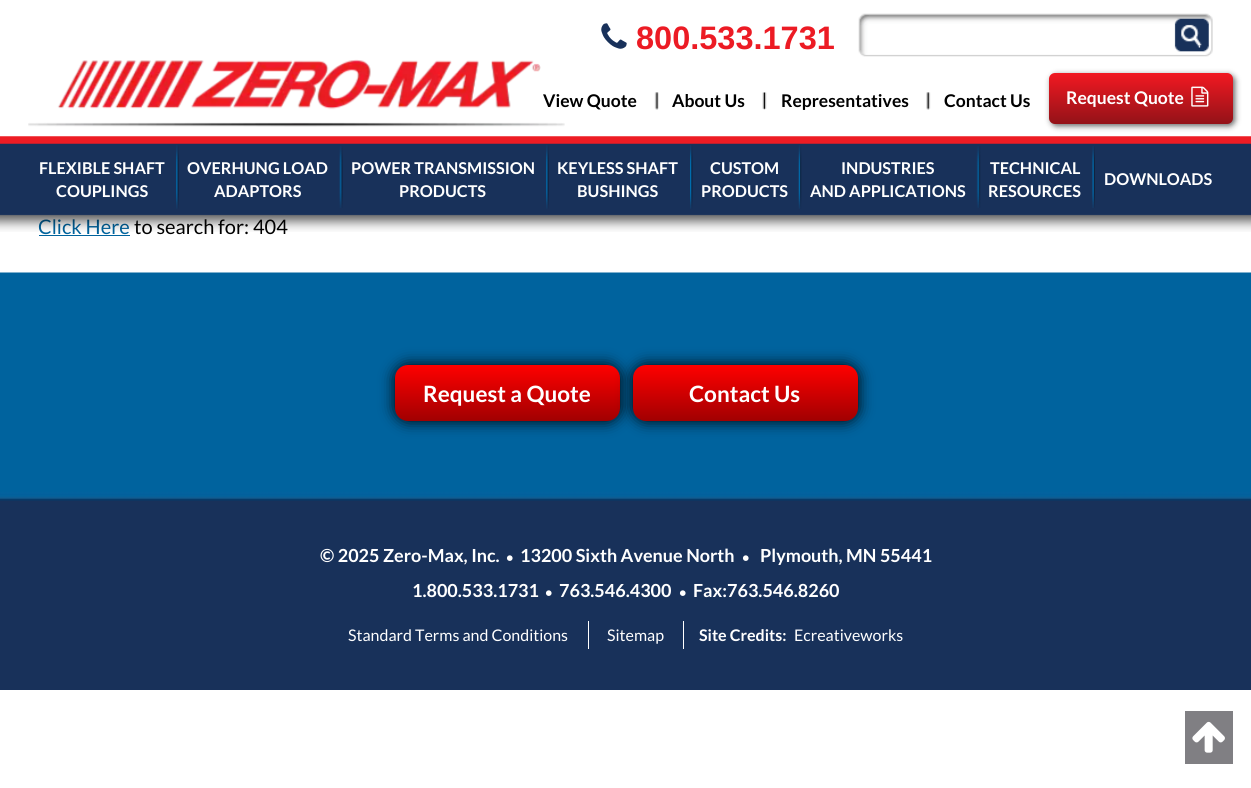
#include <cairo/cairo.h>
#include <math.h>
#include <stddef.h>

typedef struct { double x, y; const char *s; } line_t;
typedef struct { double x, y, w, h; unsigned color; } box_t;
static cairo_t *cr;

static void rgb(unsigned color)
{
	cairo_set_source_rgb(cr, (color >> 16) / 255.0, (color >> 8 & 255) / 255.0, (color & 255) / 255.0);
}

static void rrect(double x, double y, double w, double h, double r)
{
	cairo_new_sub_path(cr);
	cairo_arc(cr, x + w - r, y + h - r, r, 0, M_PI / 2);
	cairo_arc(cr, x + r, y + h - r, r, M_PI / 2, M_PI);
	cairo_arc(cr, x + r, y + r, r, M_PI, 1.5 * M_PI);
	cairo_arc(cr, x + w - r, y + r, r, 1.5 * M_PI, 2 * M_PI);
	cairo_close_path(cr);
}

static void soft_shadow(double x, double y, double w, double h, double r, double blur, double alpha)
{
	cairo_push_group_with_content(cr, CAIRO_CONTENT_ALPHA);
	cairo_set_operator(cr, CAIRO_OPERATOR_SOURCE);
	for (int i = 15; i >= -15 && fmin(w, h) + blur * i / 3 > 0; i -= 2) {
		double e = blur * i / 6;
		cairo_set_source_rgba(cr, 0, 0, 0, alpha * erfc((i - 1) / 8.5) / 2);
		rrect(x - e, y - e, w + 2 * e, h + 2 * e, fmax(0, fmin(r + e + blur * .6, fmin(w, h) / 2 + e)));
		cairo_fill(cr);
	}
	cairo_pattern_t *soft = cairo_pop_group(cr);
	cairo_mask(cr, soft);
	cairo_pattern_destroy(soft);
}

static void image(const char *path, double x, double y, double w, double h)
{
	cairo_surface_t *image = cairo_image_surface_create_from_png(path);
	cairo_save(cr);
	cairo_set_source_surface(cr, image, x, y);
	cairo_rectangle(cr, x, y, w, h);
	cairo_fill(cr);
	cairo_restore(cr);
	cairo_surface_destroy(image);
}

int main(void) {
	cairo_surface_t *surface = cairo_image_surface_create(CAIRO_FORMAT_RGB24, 1251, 788);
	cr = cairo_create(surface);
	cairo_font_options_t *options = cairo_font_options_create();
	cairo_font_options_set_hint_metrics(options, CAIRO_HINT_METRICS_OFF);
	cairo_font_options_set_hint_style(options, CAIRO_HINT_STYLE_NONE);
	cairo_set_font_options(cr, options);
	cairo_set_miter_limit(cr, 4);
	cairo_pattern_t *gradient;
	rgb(0xffffff);
	cairo_paint(cr);
	image("img/1.png", 601, 23, 26, 26);
	image("img/2.png", 858, 13, 355, 44);
	image("img/4.png", 654, 92, 5, 18);
	image("img/5.png", 762, 92, 5, 18);
	image("img/6.png", 926, 92, 5, 18);
	rgb(0x323232);
	soft_shadow(1051, 75, 184, 51, 6, 3, 0.75);
	gradient = cairo_pattern_create_linear(1141, 72, 1141, 124);
	cairo_pattern_add_color_stop_rgba(gradient, 0, 0.957, 0.098, 0.133, 1);
	cairo_pattern_add_color_stop_rgba(gradient, 1, 0.576, 0.071, 0.094, 1);
	cairo_set_source(cr, gradient);
	cairo_pattern_destroy(gradient);
	rrect(1049, 73, 184, 51, 6);
	cairo_fill(cr);
	image("img/7.png", 1191, 86, 18, 21);
	rgb(0x00639d);
	cairo_rectangle(cr, 39, 235, 91, 1);
	cairo_fill(cr);
	rgb(0x18315a);
	cairo_rectangle(cr, 0, 501, 1251, 189);
	cairo_fill(cr);
	image("img/15.png", 0, 272, 1251, 229);
	rgb(0x000000);
	soft_shadow(395, 365, 225, 56, 13, 7.5, 1);
	gradient = cairo_pattern_create_linear(508, 365, 508, 421);
	cairo_pattern_add_color_stop_rgba(gradient, 0, 1, 0, 0, 1);
	cairo_pattern_add_color_stop_rgba(gradient, 1, 0.631, 0, 0.004, 1);
	cairo_set_source(cr, gradient);
	cairo_pattern_destroy(gradient);
	rrect(395, 365, 225, 56, 13);
	cairo_fill(cr);
	rgb(0x000000);
	soft_shadow(633, 365, 225, 56, 13, 7.5, 1);
	gradient = cairo_pattern_create_linear(745, 365, 745, 421);
	cairo_pattern_add_color_stop_rgba(gradient, 0, 1, 0, 0, 1);
	cairo_pattern_add_color_stop_rgba(gradient, 1, 0.631, 0, 0.004, 1);
	cairo_set_source(cr, gradient);
	cairo_pattern_destroy(gradient);
	rrect(633, 365, 225, 56, 13);
	cairo_fill(cr);
	{
		static const box_t items[] = {
			{588, 621, 1, 28, 0xffffff},
			{683, 621, 1, 28, 0xffffff},
			{1185, 711, 48, 53, 0x807f83},
		};
		for (size_t i = 0; i < sizeof items / sizeof *items; i++) {
			rgb(items[i].color);
			cairo_rectangle(cr, items[i].x, items[i].y, items[i].w, items[i].h);
			cairo_fill(cr);
		}
	}
	image("img/16.png", 1192, 721, 33, 32);
	cairo_select_font_face(cr, "Liberation Sans", CAIRO_FONT_SLANT_NORMAL, CAIRO_FONT_WEIGHT_BOLD);
	cairo_set_font_size(cr, 32.5);
	rgb(0xec1b24);
	cairo_move_to(cr, 636, 49);
	cairo_show_text(cr, "800.533.1731");
	cairo_select_font_face(cr, "Lato", CAIRO_FONT_SLANT_NORMAL, CAIRO_FONT_WEIGHT_BOLD);
	cairo_set_font_size(cr, 17.5);
	rgb(0x000000);
	cairo_move_to(cr, 543, 107);
	cairo_show_text(cr, "View Quote");
	image("img/3.png", 28, 59, 537, 68);
	{
		static const line_t items[] = {
			{672, 107, "About Us"},
			{781, 107, "Representatives"},
			{944, 107, "Contact Us"},
		};
		for (size_t i = 0; i < sizeof items / sizeof *items; i++) {
			cairo_move_to(cr, items[i].x, items[i].y);
			cairo_show_text(cr, items[i].s);
		}
	}
	rgb(0xffffff);
	cairo_move_to(cr, 1066, 104);
	cairo_show_text(cr, "Request Quote");
	cairo_select_font_face(cr, "Lato", CAIRO_FONT_SLANT_NORMAL, CAIRO_FONT_WEIGHT_NORMAL);
	cairo_set_font_size(cr, 20);
	rgb(0x00639d);
	cairo_move_to(cr, 38, 234);
	cairo_show_text(cr, "Click Here");
	rgb(0x000000);
	cairo_move_to(cr, 134, 234);
	cairo_show_text(cr, "to search for: 404");
	image("img/8.png", 0, 136, 1251, 96);
	cairo_select_font_face(cr, "Lato", CAIRO_FONT_SLANT_NORMAL, CAIRO_FONT_WEIGHT_BOLD);
	cairo_set_font_size(cr, 16.25);
	rgb(0xffffff);
	{
		static const line_t items[] = {
			{1104, 185, "DOWNLOADS"},
			{988, 197, "RESOURCES"},
			{990, 174, "TECHNICAL"},
			{810, 197, "AND APPLICATIONS"},
			{841, 174, "INDUSTRIES"},
			{701, 197, "PRODUCTS"},
			{710, 174, "CUSTOM"},
			{577, 197, "BUSHINGS"},
			{557, 174, "KEYLESS SHAFT"},
			{399, 197, "PRODUCTS"},
			{351, 174, "POWER TRANSMISSION"},
			{214, 197, "ADAPTORS"},
			{187, 174, "OVERHUNG LOAD"},
			{56, 197, "COUPLINGS"},
			{39, 174, "FLEXIBLE SHAFT"},
		};
		for (size_t i = 0; i < sizeof items / sizeof *items; i++) {
			cairo_move_to(cr, items[i].x, items[i].y);
			cairo_show_text(cr, items[i].s);
		}
	}
	image("img/14.png", 1092, 146, 3, 62);
	image("img/13.png", 976, 146, 5, 62);
	image("img/12.png", 798, 145, 4, 64);
	image("img/11.png", 690, 145, 3, 64);
	image("img/9.png", 546, 145, 3, 64);
	image("img/10.png", 339, 146, 4, 62);
	image("img/9.png", 176, 145, 3, 64);
	cairo_set_font_size(cr, 22.5);
	cairo_move_to(cr, 423, 402);
	cairo_show_text(cr, "Request a Quote");
	cairo_move_to(cr, 689, 402);
	cairo_show_text(cr, "Contact Us");
	cairo_set_font_size(cr, 18);
	cairo_move_to(cr, 320, 562);
	cairo_show_text(cr, "© 2025 Zero-Max, Inc.");
	cairo_set_font_size(cr, 13);
	cairo_move_to(cr, 506, 562);
	cairo_show_text(cr, "•");
	cairo_set_font_size(cr, 18);
	cairo_move_to(cr, 520, 562);
	cairo_show_text(cr, "13200 Sixth Avenue North");
	cairo_set_font_size(cr, 13);
	cairo_move_to(cr, 742, 562);
	cairo_show_text(cr, "•");
	cairo_set_font_size(cr, 18);
	cairo_move_to(cr, 760, 562);
	cairo_show_text(cr, "Plymouth, MN 55441");
	cairo_move_to(cr, 412, 597);
	cairo_show_text(cr, "1.800.533.1731");
	cairo_set_font_size(cr, 13);
	cairo_move_to(cr, 545, 597);
	cairo_show_text(cr, "•");
	cairo_set_font_size(cr, 18);
	cairo_move_to(cr, 559, 597);
	cairo_show_text(cr, "763.546.4300");
	cairo_set_font_size(cr, 13);
	cairo_move_to(cr, 679, 597);
	cairo_show_text(cr, "•");
	cairo_set_font_size(cr, 18);
	cairo_move_to(cr, 693, 597);
	cairo_show_text(cr, "Fax:763.546.8260");
	cairo_select_font_face(cr, "Lato", CAIRO_FONT_SLANT_NORMAL, CAIRO_FONT_WEIGHT_NORMAL);
	cairo_set_font_size(cr, 16);
	cairo_move_to(cr, 348, 641);
	cairo_show_text(cr, "Standard Terms and Conditions");
	cairo_move_to(cr, 607, 641);
	cairo_show_text(cr, "Sitemap");
	cairo_select_font_face(cr, "Lato", CAIRO_FONT_SLANT_NORMAL, CAIRO_FONT_WEIGHT_BOLD);
	cairo_move_to(cr, 699, 641);
	cairo_show_text(cr, "Site Credits:");
	cairo_select_font_face(cr, "Lato", CAIRO_FONT_SLANT_NORMAL, CAIRO_FONT_WEIGHT_NORMAL);
	cairo_move_to(cr, 794, 641);
	cairo_show_text(cr, "Ecreativeworks");
	cairo_surface_write_to_png(surface, "page.png");
	cairo_font_options_destroy(options);
	cairo_destroy(cr);
	cairo_surface_destroy(surface);
	return 0;
}
